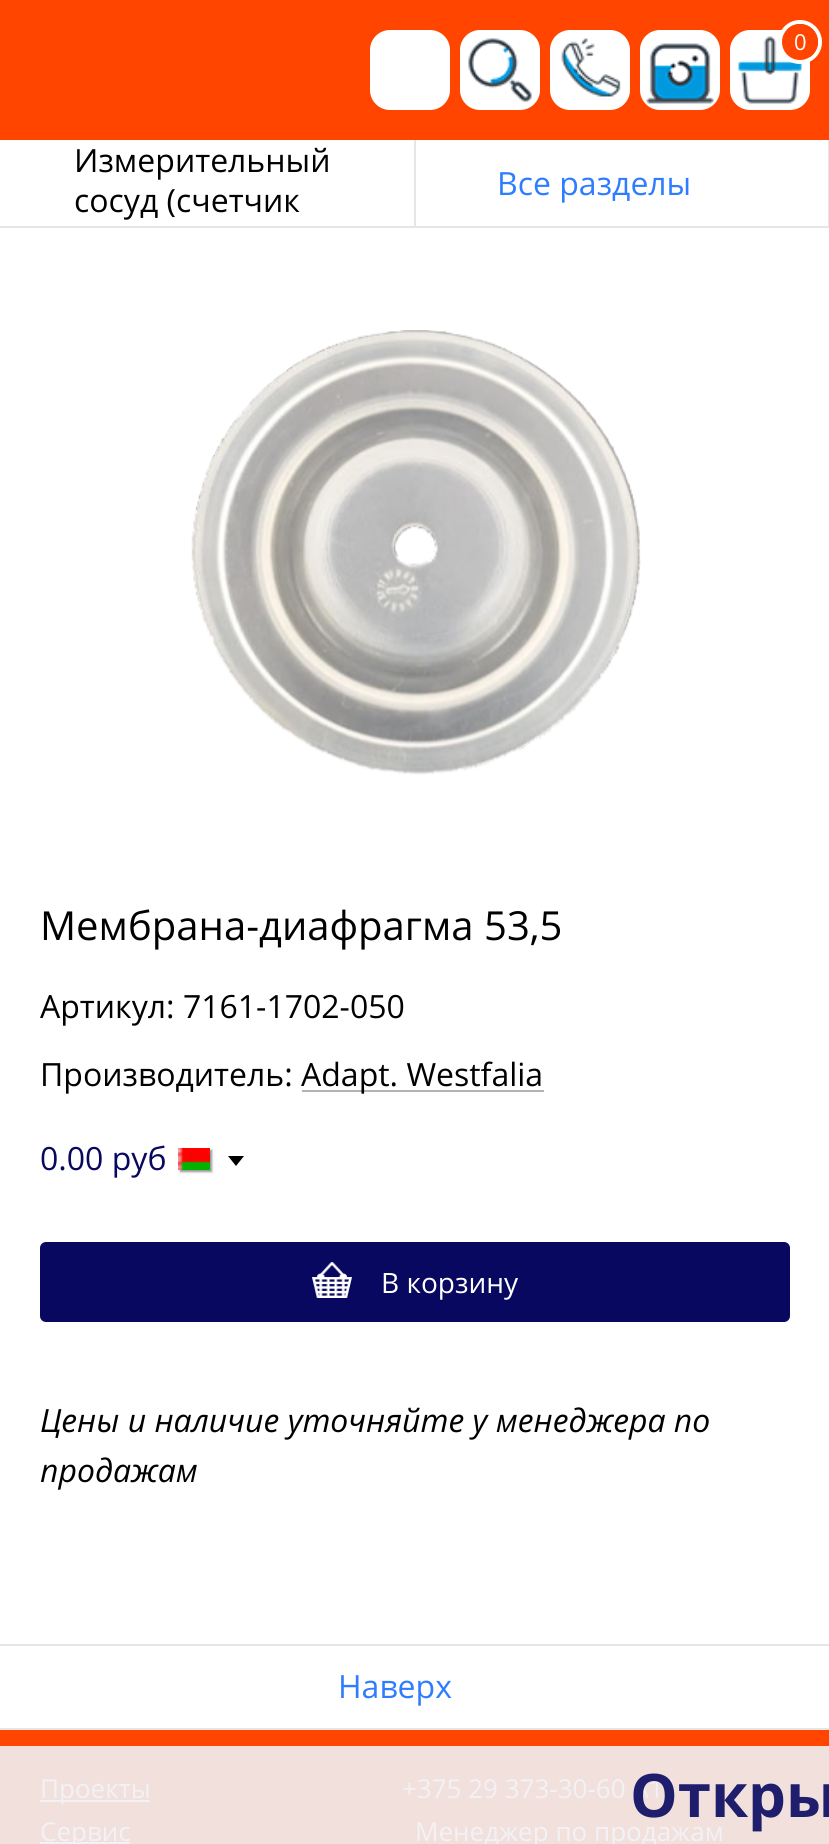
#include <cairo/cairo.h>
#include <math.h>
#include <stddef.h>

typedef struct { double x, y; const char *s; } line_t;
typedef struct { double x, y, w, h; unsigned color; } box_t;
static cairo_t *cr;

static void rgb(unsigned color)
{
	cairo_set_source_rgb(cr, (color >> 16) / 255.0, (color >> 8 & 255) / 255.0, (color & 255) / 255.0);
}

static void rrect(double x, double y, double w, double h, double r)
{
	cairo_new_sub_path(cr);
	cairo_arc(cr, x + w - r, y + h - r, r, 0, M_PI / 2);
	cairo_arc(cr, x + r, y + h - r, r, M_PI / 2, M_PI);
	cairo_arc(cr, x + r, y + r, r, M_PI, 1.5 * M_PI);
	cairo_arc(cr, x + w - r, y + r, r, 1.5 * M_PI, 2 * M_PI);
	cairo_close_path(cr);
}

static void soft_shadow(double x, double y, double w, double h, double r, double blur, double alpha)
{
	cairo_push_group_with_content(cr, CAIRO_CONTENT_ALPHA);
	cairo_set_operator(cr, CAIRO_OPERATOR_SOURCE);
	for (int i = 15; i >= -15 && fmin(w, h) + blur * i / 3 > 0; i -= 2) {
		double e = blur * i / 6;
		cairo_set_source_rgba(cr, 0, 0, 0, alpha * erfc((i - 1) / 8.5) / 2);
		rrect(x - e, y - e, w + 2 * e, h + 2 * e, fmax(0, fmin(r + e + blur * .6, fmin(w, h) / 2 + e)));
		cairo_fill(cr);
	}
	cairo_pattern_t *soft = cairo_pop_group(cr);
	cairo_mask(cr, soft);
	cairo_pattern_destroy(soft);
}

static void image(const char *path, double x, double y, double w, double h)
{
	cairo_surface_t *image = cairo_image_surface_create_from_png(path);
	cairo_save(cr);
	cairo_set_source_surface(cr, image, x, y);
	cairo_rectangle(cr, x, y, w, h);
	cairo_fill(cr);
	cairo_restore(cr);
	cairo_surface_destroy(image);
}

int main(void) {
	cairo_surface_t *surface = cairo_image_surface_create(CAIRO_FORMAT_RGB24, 829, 1844);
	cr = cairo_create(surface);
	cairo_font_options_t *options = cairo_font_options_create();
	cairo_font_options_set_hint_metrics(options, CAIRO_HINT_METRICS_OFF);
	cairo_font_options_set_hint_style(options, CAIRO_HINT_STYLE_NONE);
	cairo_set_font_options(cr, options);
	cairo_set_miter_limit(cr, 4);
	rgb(0xe6e6e6);
	cairo_paint(cr);
	rgb(0xff4500);
	cairo_rectangle(cr, 0, 0, 829, 140);
	cairo_fill(cr);
	rgb(0xffffff);
	rrect(370, 30, 80, 80, 20);
	cairo_fill(cr);
	rrect(460, 30, 80, 80, 20);
	cairo_fill(cr);
	image("img/1.png", 468, 38, 64, 64);
	rrect(550, 30, 80, 80, 20);
	cairo_fill(cr);
	image("img/2.png", 561, 38, 60, 59);
	rrect(640, 30, 80, 80, 20);
	cairo_fill(cr);
	image("img/3.png", 646, 43, 68, 61);
	rrect(730, 30, 80, 80, 20);
	cairo_fill(cr);
	image("img/4.png", 738, 36, 64, 68);
	cairo_arc(cr, 800, 42, 20, 0, 2 * M_PI);
	cairo_set_line_width(cr, 4);
	cairo_stroke(cr);
	rgb(0xff4500);
	cairo_arc(cr, 800, 42, 18, 0, 2 * M_PI);
	cairo_fill(cr);
	{
		static const box_t items[] = {
			{0, 140, 414, 86, 0xffffff},
			{416, 140, 412, 86, 0xffffff},
			{0, 228, 829, 1416, 0xffffff},
		};
		for (size_t i = 0; i < sizeof items / sizeof *items; i++) {
			rgb(items[i].color);
			cairo_rectangle(cr, items[i].x, items[i].y, items[i].w, items[i].h);
			cairo_fill(cr);
		}
	}
	image("img/5.png", 191, 330, 450, 445);
	rgb(0xb3b3b3);
	cairo_rectangle(cr, 302, 1090, 242, 2);
	cairo_fill(cr);
	rgb(0x000000);
	soft_shadow(180, 1150, 32, 22, 0, 1, 0.4);
	image("img/6.png", 178, 1148, 32, 22);
	rgb(0x000000);
	cairo_new_path(cr);
	cairo_move_to(cr, 228, 1156);
	cairo_line_to(cr, 244, 1156);
	cairo_line_to(cr, 236, 1166);
	cairo_close_path(cr);
	cairo_fill(cr);
	rgb(0x080861);
	rrect(40, 1242, 750, 80, 6);
	cairo_fill(cr);
	image("img/7.png", 312, 1262, 40, 36);
	{
		static const box_t items[] = {
			{0, 1646, 829, 82, 0xffffff},
			{0, 1730, 829, 16, 0xff4500},
			{0, 1746, 829, 98, 0xf2e0dd},
			{40, 1800, 110, 2, 0xf2f2f6},
			{40, 1842, 90, 2, 0xf2f2f6},
		};
		for (size_t i = 0; i < sizeof items / sizeof *items; i++) {
			rgb(items[i].color);
			cairo_rectangle(cr, items[i].x, items[i].y, items[i].w, items[i].h);
			cairo_fill(cr);
		}
	}
	cairo_select_font_face(cr, "Open Sans", CAIRO_FONT_SLANT_NORMAL, CAIRO_FONT_WEIGHT_NORMAL);
	cairo_set_font_size(cr, 22);
	rgb(0xffffff);
	cairo_move_to(cr, 794, 50);
	cairo_show_text(cr, "0");
	cairo_set_font_size(cr, 32);
	rgb(0x000000);
	cairo_move_to(cr, 74, 172);
	cairo_show_text(cr, "Измерительный");
	cairo_move_to(cr, 74, 212);
	cairo_show_text(cr, "сосуд (счетчик");
	rgb(0x2f7dff);
	cairo_move_to(cr, 497, 195);
	cairo_show_text(cr, "Все разделы");
	cairo_set_font_size(cr, 40);
	rgb(0x000000);
	cairo_move_to(cr, 40, 940);
	cairo_show_text(cr, "Мембрана-диафрагма 53,5");
	cairo_set_font_size(cr, 32);
	{
		static const line_t items[] = {
			{40, 1018, "Артикул: 7161-1702-050"},
			{40, 1086, "Производитель:"},
			{301, 1086, "Adapt. Westfalia"},
		};
		for (size_t i = 0; i < sizeof items / sizeof *items; i++) {
			cairo_move_to(cr, items[i].x, items[i].y);
			cairo_show_text(cr, items[i].s);
		}
	}
	rgb(0x080861);
	cairo_move_to(cr, 40, 1170);
	cairo_show_text(cr, "0.00 руб");
	cairo_set_font_size(cr, 28);
	rgb(0xffffff);
	cairo_move_to(cr, 381, 1293);
	cairo_show_text(cr, "В корзину");
	cairo_select_font_face(cr, "Open Sans", CAIRO_FONT_SLANT_ITALIC, CAIRO_FONT_WEIGHT_NORMAL);
	cairo_set_font_size(cr, 32);
	rgb(0x000000);
	cairo_move_to(cr, 40, 1432);
	cairo_show_text(cr, "Цены и наличие уточняйте у менеджера по");
	cairo_move_to(cr, 40, 1482);
	cairo_show_text(cr, "продажам");
	cairo_select_font_face(cr, "Open Sans", CAIRO_FONT_SLANT_NORMAL, CAIRO_FONT_WEIGHT_NORMAL);
	rgb(0x2f7dff);
	cairo_move_to(cr, 338, 1698);
	cairo_show_text(cr, "Наверх");
	cairo_set_font_size(cr, 26);
	rgb(0xf2f2f6);
	{
		static const line_t items[] = {
			{40, 1798, "Проекты"},
			{40, 1841, "Сервис"},
			{402, 1798, "+375 29 373-30-60 A1/"},
			{415, 1841, "Менеджер по продажам"},
		};
		for (size_t i = 0; i < sizeof items / sizeof *items; i++) {
			cairo_move_to(cr, items[i].x, items[i].y);
			cairo_show_text(cr, items[i].s);
		}
	}
	cairo_select_font_face(cr, "Open Sans", CAIRO_FONT_SLANT_NORMAL, CAIRO_FONT_WEIGHT_BOLD);
	cairo_set_font_size(cr, 60);
	rgb(0x1f1e6d);
	cairo_move_to(cr, 630, 1817);
	cairo_show_text(cr, "Откры");
	cairo_surface_write_to_png(surface, "page.png");
	cairo_font_options_destroy(options);
	cairo_destroy(cr);
	cairo_surface_destroy(surface);
	return 0;
}
